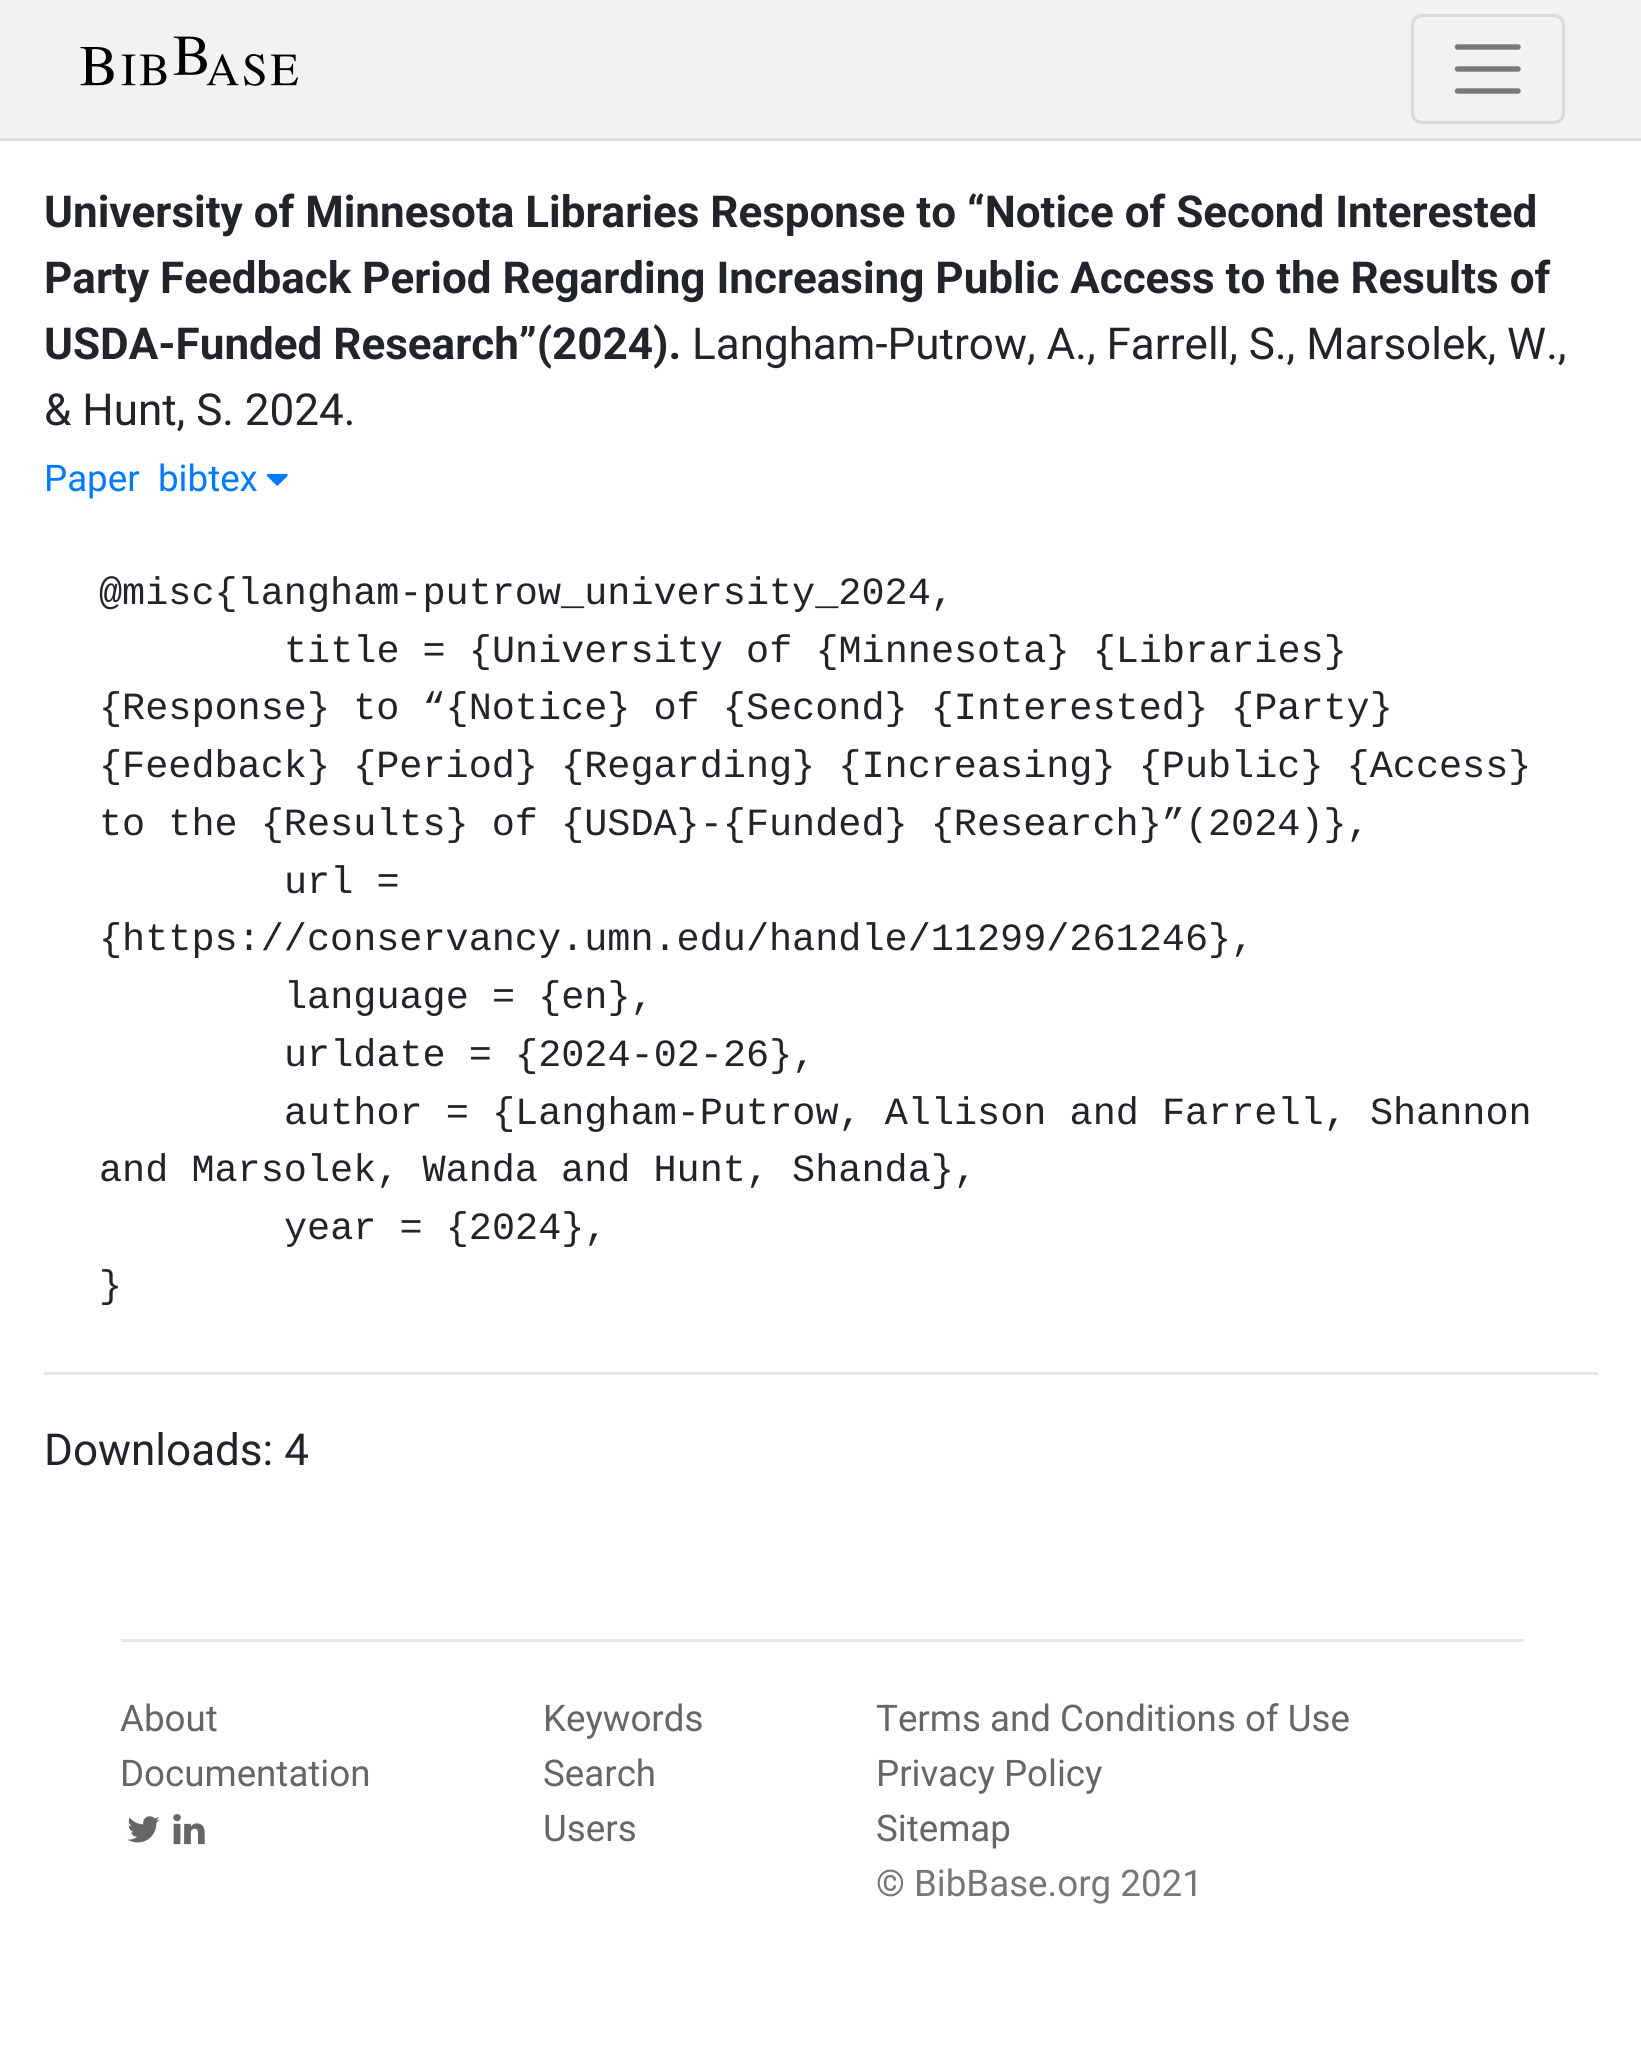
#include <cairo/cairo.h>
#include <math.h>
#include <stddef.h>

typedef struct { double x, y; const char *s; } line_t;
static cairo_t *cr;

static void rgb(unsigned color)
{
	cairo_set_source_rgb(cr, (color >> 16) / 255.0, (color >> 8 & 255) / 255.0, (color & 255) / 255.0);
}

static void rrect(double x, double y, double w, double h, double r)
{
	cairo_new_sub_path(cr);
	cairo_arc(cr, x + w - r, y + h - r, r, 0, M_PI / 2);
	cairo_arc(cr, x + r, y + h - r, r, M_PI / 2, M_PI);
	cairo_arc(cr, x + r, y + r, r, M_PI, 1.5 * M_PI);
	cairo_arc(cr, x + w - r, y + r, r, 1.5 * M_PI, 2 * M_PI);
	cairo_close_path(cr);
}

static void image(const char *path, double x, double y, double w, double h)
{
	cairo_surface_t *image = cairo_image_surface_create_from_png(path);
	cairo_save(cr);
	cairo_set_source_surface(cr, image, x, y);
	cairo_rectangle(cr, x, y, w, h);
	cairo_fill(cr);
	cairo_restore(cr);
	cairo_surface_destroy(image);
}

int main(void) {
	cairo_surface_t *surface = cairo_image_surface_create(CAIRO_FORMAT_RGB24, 1641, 2070);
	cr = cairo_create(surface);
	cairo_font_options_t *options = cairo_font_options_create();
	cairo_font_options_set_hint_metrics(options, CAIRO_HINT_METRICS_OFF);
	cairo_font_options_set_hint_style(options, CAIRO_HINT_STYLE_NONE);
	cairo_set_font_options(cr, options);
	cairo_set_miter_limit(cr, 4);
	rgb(0xffffff);
	cairo_paint(cr);
	rgb(0xf2f2f2);
	cairo_rectangle(cr, 0, 0, 1641, 138);
	cairo_fill(cr);
	rgb(0xdddddd);
	cairo_rectangle(cr, 0, 138, 1641, 3);
	cairo_fill(cr);
	image("img/1.png", 80, 36, 218, 50);
	rrect(1412.5, 15.5, 151, 107, 9.5);
	rgb(0xdadada);
	cairo_set_line_width(cr, 3);
	cairo_stroke(cr);
	cairo_new_path(cr);
	cairo_move_to(cr, 1457.5, 47);
	cairo_line_to(cr, 1518, 47);
	cairo_move_to(cr, 1457.5, 69);
	cairo_line_to(cr, 1518, 69);
	cairo_move_to(cr, 1457.5, 91);
	cairo_line_to(cr, 1518, 91);
	rgb(0x797979);
	cairo_set_line_width(cr, 5.5);
	cairo_set_line_cap(cr, CAIRO_LINE_CAP_ROUND);
	cairo_stroke(cr);
	image("img/2.png", 266, 473, 22, 13);
	rgb(0xe6e6e6);
	cairo_rectangle(cr, 44, 1372, 1554, 3);
	cairo_fill(cr);
	rgb(0xe5e5e5);
	cairo_rectangle(cr, 121, 1639, 1403, 3);
	cairo_fill(cr);
	image("img/3.png", 127, 1816, 33, 27);
	image("img/4.png", 173, 1814, 32, 31);
	cairo_select_font_face(cr, "Roboto", CAIRO_FONT_SLANT_NORMAL, CAIRO_FONT_WEIGHT_BOLD);
	cairo_set_font_size(cr, 44);
	rgb(0x212529);
	{
		static const line_t items[] = {
			{44, 227, "University of Minnesota Libraries Response to “Notice of Second Interested"},
			{44, 293, "Party Feedback Period Regarding Increasing Public Access to the Results of"},
			{44, 359, "USDA-Funded Research”(2024)."},
		};
		for (size_t i = 0; i < sizeof items / sizeof *items; i++) {
			cairo_move_to(cr, items[i].x, items[i].y);
			cairo_show_text(cr, items[i].s);
		}
	}
	cairo_select_font_face(cr, "Roboto", CAIRO_FONT_SLANT_NORMAL, CAIRO_FONT_WEIGHT_NORMAL);
	cairo_move_to(cr, 692, 359);
	cairo_show_text(cr, "Langham-Putrow, A., Farrell, S., Marsolek, W.,");
	cairo_move_to(cr, 44, 425);
	cairo_show_text(cr, "& Hunt, S. 2024.");
	cairo_set_font_size(cr, 36.7);
	rgb(0x007bff);
	cairo_move_to(cr, 44, 491);
	cairo_show_text(cr, "Paper");
	cairo_move_to(cr, 158, 491);
	cairo_show_text(cr, "bibtex");
	cairo_select_font_face(cr, "Liberation Mono", CAIRO_FONT_SLANT_NORMAL, CAIRO_FONT_WEIGHT_NORMAL);
	cairo_set_font_size(cr, 38.5);
	rgb(0x212529);
	{
		static const line_t items[] = {
			{99, 604, "@misc{langham-putrow_university_2024,"},
			{284, 662, "title = {University of {Minnesota} {Libraries}"},
			{99, 719, "{Response} to “{Notice} of {Second} {Interested} {Party}"},
			{99, 777, "{Feedback} {Period} {Regarding} {Increasing} {Public} {Access}"},
			{99, 835, "to the {Results} of {USDA}-{Funded} {Research}”(2024)},"},
			{284, 893, "url ="},
			{99, 950, "{https://conservancy.umn.edu/handle/11299/261246},"},
			{284, 1008, "language = {en},"},
			{284, 1066, "urldate = {2024-02-26},"},
			{284, 1124, "author = {Langham-Putrow, Allison and Farrell, Shannon"},
			{99, 1181, "and Marsolek, Wanda and Hunt, Shanda},"},
			{284, 1239, "year = {2024},"},
			{99, 1297, "}"},
		};
		for (size_t i = 0; i < sizeof items / sizeof *items; i++) {
			cairo_move_to(cr, items[i].x, items[i].y);
			cairo_show_text(cr, items[i].s);
		}
	}
	cairo_select_font_face(cr, "Roboto", CAIRO_FONT_SLANT_NORMAL, CAIRO_FONT_WEIGHT_NORMAL);
	cairo_set_font_size(cr, 44);
	cairo_move_to(cr, 44, 1465);
	cairo_show_text(cr, "Downloads: 4");
	cairo_set_font_size(cr, 36.7);
	rgb(0x666666);
	{
		static const line_t items[] = {
			{120, 1731, "About"},
			{120, 1786, "Documentation"},
			{543, 1731, "Keywords"},
			{543, 1786, "Search"},
			{543, 1841, "Users"},
			{876, 1731, "Terms and Conditions of Use"},
			{876, 1786, "Privacy Policy"},
			{876, 1841, "Sitemap"},
		};
		for (size_t i = 0; i < sizeof items / sizeof *items; i++) {
			cairo_move_to(cr, items[i].x, items[i].y);
			cairo_show_text(cr, items[i].s);
		}
	}
	rgb(0x777777);
	cairo_move_to(cr, 876, 1896);
	cairo_show_text(cr, "© BibBase.org 2021");
	cairo_surface_write_to_png(surface, "page.png");
	cairo_font_options_destroy(options);
	cairo_destroy(cr);
	cairo_surface_destroy(surface);
	return 0;
}
